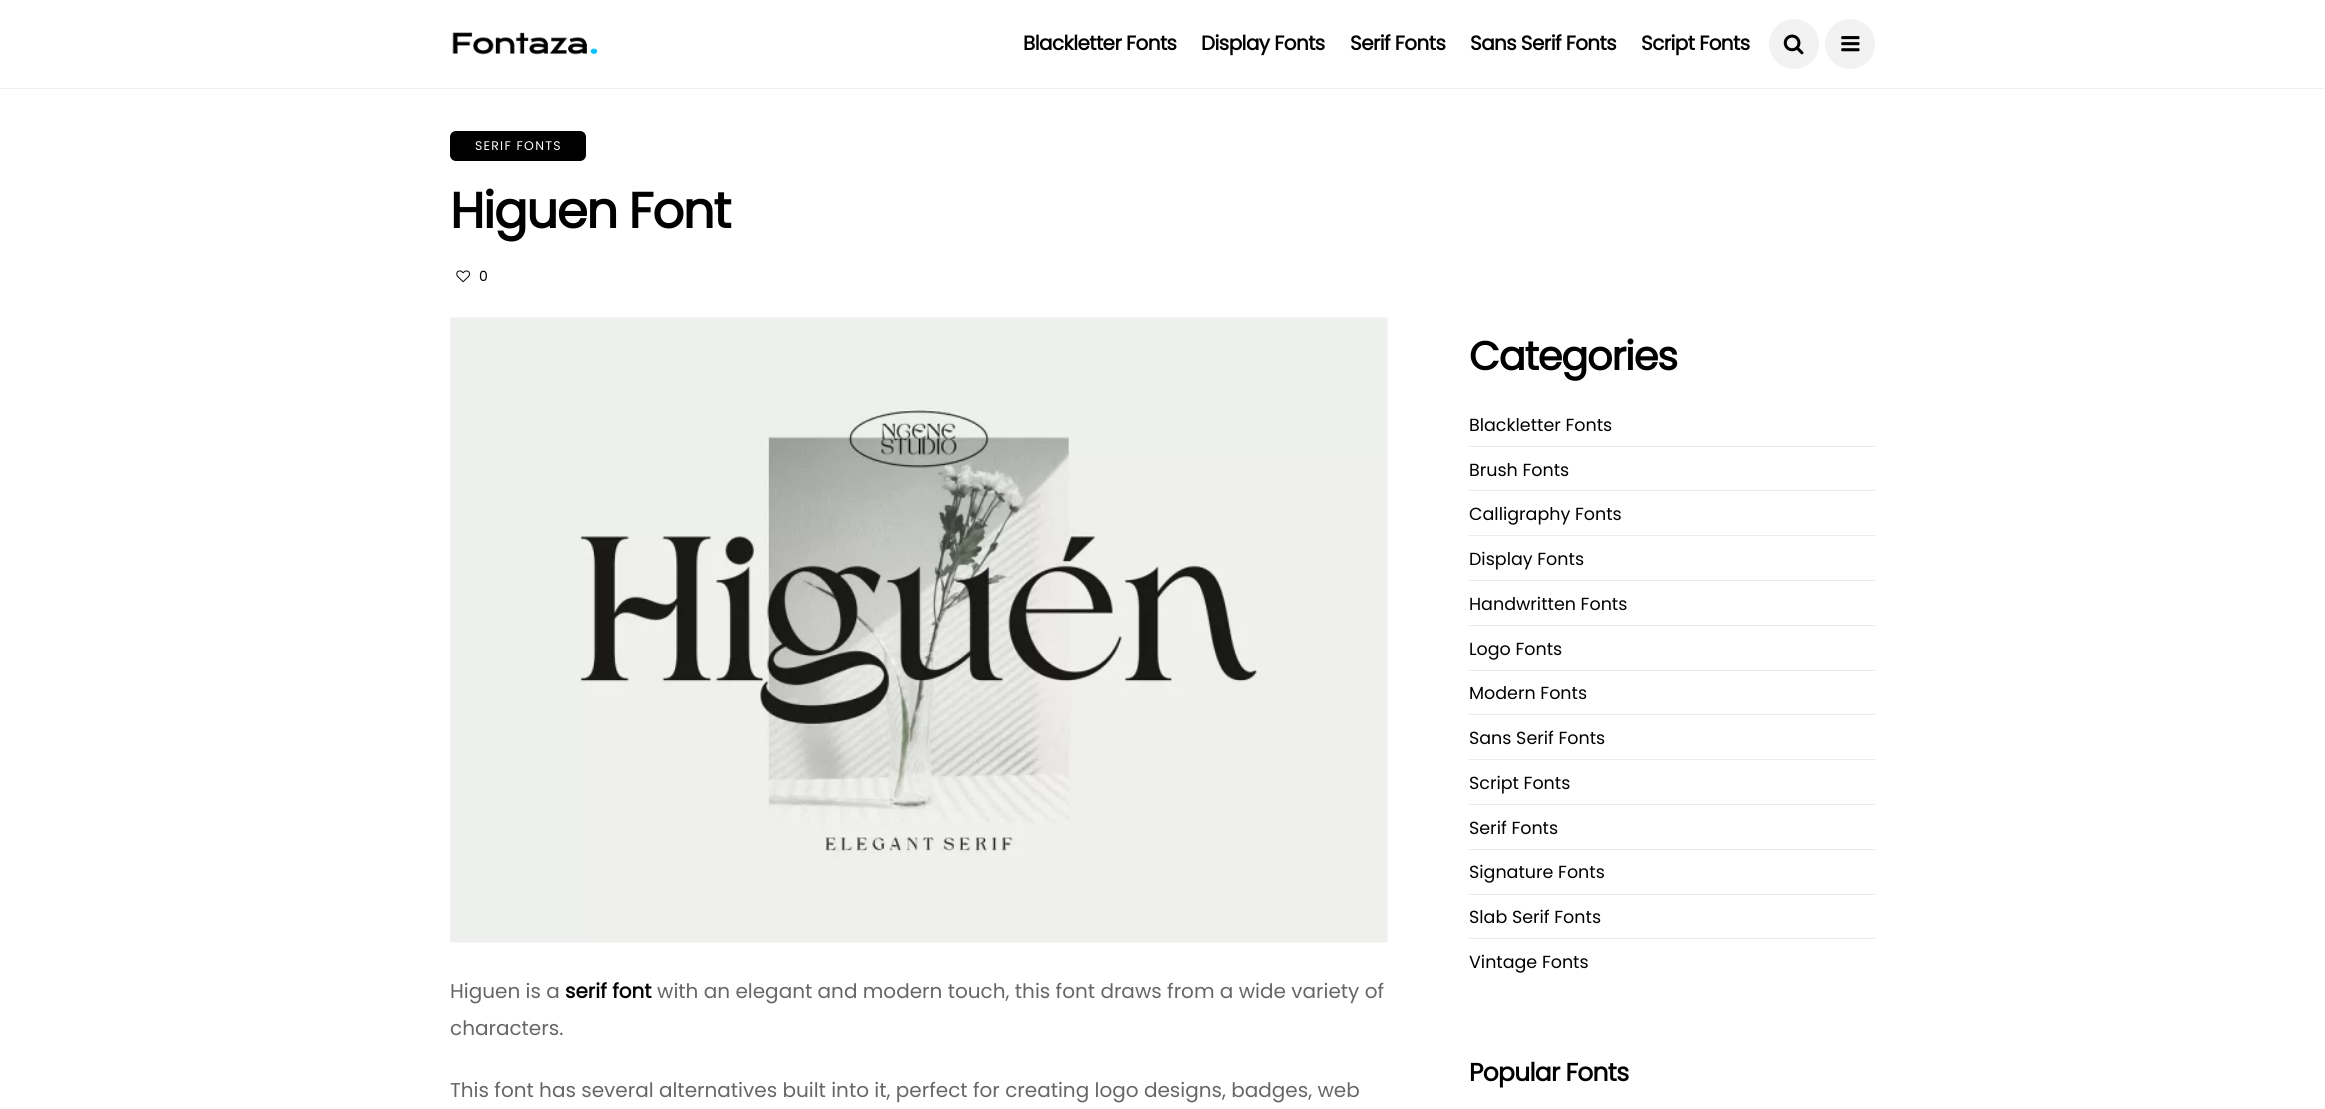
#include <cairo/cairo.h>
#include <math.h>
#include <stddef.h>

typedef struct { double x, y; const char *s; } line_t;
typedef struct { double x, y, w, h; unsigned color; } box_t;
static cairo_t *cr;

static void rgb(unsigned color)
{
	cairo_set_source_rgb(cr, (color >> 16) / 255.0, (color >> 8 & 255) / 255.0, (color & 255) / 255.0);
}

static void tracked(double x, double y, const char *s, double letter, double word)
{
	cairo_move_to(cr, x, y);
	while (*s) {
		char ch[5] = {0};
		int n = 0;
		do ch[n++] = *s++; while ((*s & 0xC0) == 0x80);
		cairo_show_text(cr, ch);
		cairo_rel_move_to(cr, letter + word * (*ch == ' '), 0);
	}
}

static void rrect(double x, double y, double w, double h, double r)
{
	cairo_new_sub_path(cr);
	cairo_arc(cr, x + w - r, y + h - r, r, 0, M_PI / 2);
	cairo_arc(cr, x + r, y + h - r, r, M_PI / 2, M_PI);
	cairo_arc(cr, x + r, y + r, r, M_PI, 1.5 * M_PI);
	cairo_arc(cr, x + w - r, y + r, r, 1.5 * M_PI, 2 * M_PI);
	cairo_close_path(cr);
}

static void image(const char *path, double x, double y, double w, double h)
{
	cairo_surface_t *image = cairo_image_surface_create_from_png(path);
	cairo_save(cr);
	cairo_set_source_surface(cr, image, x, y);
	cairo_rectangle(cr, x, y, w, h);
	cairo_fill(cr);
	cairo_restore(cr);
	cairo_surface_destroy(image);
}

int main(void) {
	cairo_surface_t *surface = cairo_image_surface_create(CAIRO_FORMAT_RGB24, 2325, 1109);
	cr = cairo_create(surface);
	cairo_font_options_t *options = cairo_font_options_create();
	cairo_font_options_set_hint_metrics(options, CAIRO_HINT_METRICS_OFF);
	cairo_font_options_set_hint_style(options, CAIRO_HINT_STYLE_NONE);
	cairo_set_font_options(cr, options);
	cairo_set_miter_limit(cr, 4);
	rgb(0xffffff);
	cairo_paint(cr);
	rgb(0xf0f0f0);
	cairo_rectangle(cr, 0, 88, 2325, 1);
	cairo_fill(cr);
	image("img/1.png", 452, 32, 146, 23);
	rgb(0xf2f2f2);
	cairo_arc(cr, 1794, 44, 25, 0, 2 * M_PI);
	cairo_fill(cr);
	image("img/2.png", 1783, 34, 21, 21);
	cairo_arc(cr, 1850, 44, 25, 0, 2 * M_PI);
	cairo_fill(cr);
	image("img/3.png", 1841, 36, 19, 16);
	rgb(0x000000);
	rrect(450, 131, 136, 30, 6);
	cairo_fill(cr);
	image("img/4.png", 456, 270, 14, 13);
	image("img/5.png", 450, 317, 938, 626);
	{
		static const box_t items[] = {
			{1469, 446, 406, 1, 0xeaeaea},
			{1469, 490, 406, 1, 0xeaeaea},
			{1469, 535, 406, 1, 0xeaeaea},
			{1469, 580, 406, 1, 0xeaeaea},
			{1469, 625, 406, 1, 0xeaeaea},
			{1469, 670, 406, 1, 0xeaeaea},
			{1469, 714, 406, 1, 0xeaeaea},
			{1469, 759, 406, 1, 0xeaeaea},
			{1469, 804, 406, 1, 0xeaeaea},
			{1469, 849, 406, 1, 0xeaeaea},
			{1469, 894, 406, 1, 0xeaeaea},
			{1469, 938, 406, 1, 0xeaeaea},
		};
		for (size_t i = 0; i < sizeof items / sizeof *items; i++) {
			rgb(items[i].color);
			cairo_rectangle(cr, items[i].x, items[i].y, items[i].w, items[i].h);
			cairo_fill(cr);
		}
	}
	cairo_select_font_face(cr, "Poppins", CAIRO_FONT_SLANT_NORMAL, CAIRO_FONT_WEIGHT_BOLD);
	cairo_set_font_size(cr, 20);
	rgb(0x000000);
	{
		static const line_t items[] = {
			{1023, 50, "Blackletter Fonts"},
			{1201, 50, "Display Fonts"},
			{1350, 50, "Serif Fonts"},
			{1470, 50, "Sans Serif Fonts"},
			{1641, 50, "Script Fonts"},
		};
		for (size_t i = 0; i < sizeof items / sizeof *items; i++) {
			tracked(items[i].x, items[i].y, items[i].s, -0.6, 0);
		}
	}
	cairo_select_font_face(cr, "Poppins", CAIRO_FONT_SLANT_NORMAL, CAIRO_FONT_WEIGHT_NORMAL);
	cairo_set_font_size(cr, 12.5);
	rgb(0xffffff);
	tracked(475, 150, "SERIF FONTS", 1.25, 0);
	cairo_select_font_face(cr, "Poppins", CAIRO_FONT_SLANT_NORMAL, CAIRO_FONT_WEIGHT_BOLD);
	cairo_set_font_size(cr, 50);
	rgb(0x000000);
	tracked(450, 228, "Higuen Font", -1.5, 0);
	cairo_select_font_face(cr, "Poppins", CAIRO_FONT_SLANT_NORMAL, CAIRO_FONT_WEIGHT_NORMAL);
	cairo_set_font_size(cr, 14);
	tracked(479, 281, "0", 3, 0);
	cairo_set_font_size(cr, 20);
	rgb(0x666666);
	cairo_move_to(cr, 450, 998);
	cairo_show_text(cr, "Higuen is a");
	cairo_select_font_face(cr, "Poppins", CAIRO_FONT_SLANT_NORMAL, CAIRO_FONT_WEIGHT_BOLD);
	rgb(0x000000);
	cairo_move_to(cr, 565, 998);
	cairo_show_text(cr, "serif font");
	cairo_select_font_face(cr, "Poppins", CAIRO_FONT_SLANT_NORMAL, CAIRO_FONT_WEIGHT_NORMAL);
	rgb(0x666666);
	{
		static const line_t items[] = {
			{657, 998, "with an elegant and modern touch, this font draws from a wide variety of"},
			{450, 1035, "characters."},
			{450, 1097, "This font has several alternatives built into it, perfect for creating logo designs, badges, web"},
		};
		for (size_t i = 0; i < sizeof items / sizeof *items; i++) {
			cairo_move_to(cr, items[i].x, items[i].y);
			cairo_show_text(cr, items[i].s);
		}
	}
	cairo_select_font_face(cr, "Poppins", CAIRO_FONT_SLANT_NORMAL, CAIRO_FONT_WEIGHT_BOLD);
	cairo_set_font_size(cr, 40);
	rgb(0x000000);
	tracked(1469, 370, "Categories", -1.25, 0);
	cairo_select_font_face(cr, "Poppins", CAIRO_FONT_SLANT_NORMAL, CAIRO_FONT_WEIGHT_NORMAL);
	cairo_set_font_size(cr, 17.5);
	{
		static const line_t items[] = {
			{1469, 431, "Blackletter Fonts"},
			{1469, 476, "Brush Fonts"},
			{1469, 520, "Calligraphy Fonts"},
			{1469, 565, "Display Fonts"},
			{1469, 610, "Handwritten Fonts"},
			{1469, 655, "Logo Fonts"},
			{1469, 699, "Modern Fonts"},
			{1469, 744, "Sans Serif Fonts"},
			{1469, 789, "Script Fonts"},
			{1469, 834, "Serif Fonts"},
			{1469, 878, "Signature Fonts"},
			{1469, 923, "Slab Serif Fonts"},
			{1469, 968, "Vintage Fonts"},
		};
		for (size_t i = 0; i < sizeof items / sizeof *items; i++) {
			cairo_move_to(cr, items[i].x, items[i].y);
			cairo_show_text(cr, items[i].s);
		}
	}
	cairo_select_font_face(cr, "Poppins", CAIRO_FONT_SLANT_NORMAL, CAIRO_FONT_WEIGHT_BOLD);
	cairo_set_font_size(cr, 25);
	tracked(1469, 1081, "Popular Fonts", -0.75, 0);
	cairo_surface_write_to_png(surface, "page.png");
	cairo_font_options_destroy(options);
	cairo_destroy(cr);
	cairo_surface_destroy(surface);
	return 0;
}
